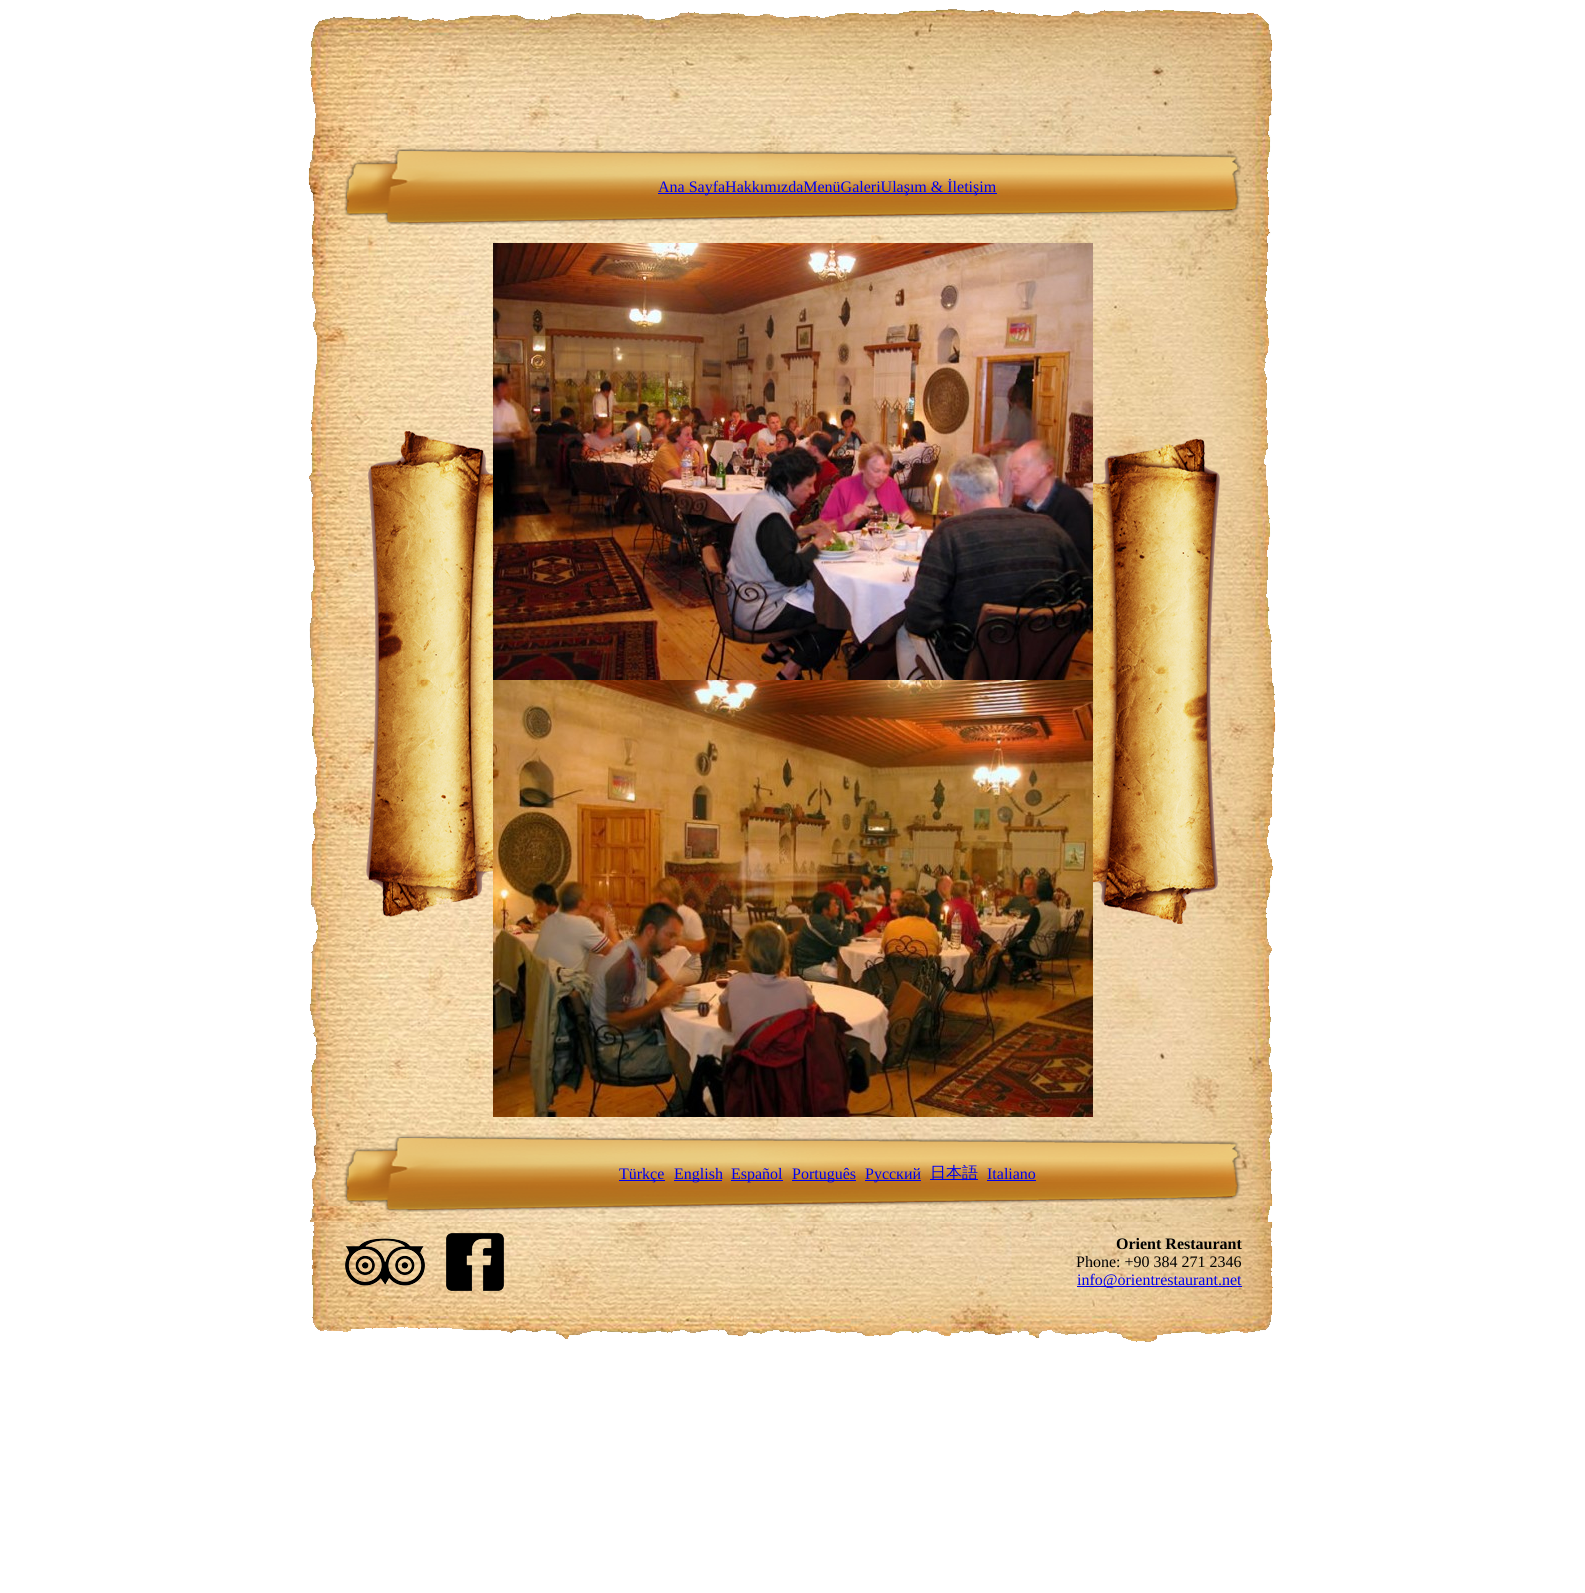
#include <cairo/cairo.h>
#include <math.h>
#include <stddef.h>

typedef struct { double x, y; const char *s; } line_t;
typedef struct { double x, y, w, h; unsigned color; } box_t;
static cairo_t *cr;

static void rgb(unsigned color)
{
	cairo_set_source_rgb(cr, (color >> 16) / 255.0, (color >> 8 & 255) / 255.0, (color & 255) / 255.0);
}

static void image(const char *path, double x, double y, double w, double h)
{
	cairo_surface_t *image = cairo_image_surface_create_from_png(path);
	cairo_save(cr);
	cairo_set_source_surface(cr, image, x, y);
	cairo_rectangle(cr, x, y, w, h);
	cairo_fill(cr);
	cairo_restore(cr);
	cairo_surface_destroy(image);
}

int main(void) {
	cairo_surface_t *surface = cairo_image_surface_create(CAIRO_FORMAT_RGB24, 1585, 1593);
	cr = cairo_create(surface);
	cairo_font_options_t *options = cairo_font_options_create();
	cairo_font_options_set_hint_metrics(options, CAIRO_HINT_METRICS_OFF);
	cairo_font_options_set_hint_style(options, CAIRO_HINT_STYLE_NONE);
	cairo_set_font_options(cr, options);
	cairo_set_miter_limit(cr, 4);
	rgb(0xffffff);
	cairo_paint(cr);
	image("img/1.png", 310, 9, 963, 139);
	image("img/2.png", 308, 148, 968, 1074);
	image("img/3.png", 344, 148, 897, 77);
	rgb(0x0000ee);
	cairo_rectangle(cr, 658, 193, 339, 1);
	cairo_fill(cr);
	image("img/4.png", 366, 431, 854, 493);
	image("img/5.png", 493, 243, 600, 437);
	image("img/6.png", 493, 680, 600, 437);
	image("img/7.png", 344, 1135, 897, 77);
	{
		static const box_t items[] = {
			{619, 1180, 46, 1, 0x0000ee},
			{674, 1180, 48, 1, 0x0000ee},
			{731, 1180, 52, 1, 0x0000ee},
			{792, 1180, 64, 1, 0x0000ee},
			{865, 1180, 56, 1, 0x0000ee},
			{930, 1179, 48, 1, 0x0000ee},
			{987, 1180, 49, 1, 0x0000ee},
		};
		for (size_t i = 0; i < sizeof items / sizeof *items; i++) {
			rgb(items[i].color);
			cairo_rectangle(cr, items[i].x, items[i].y, items[i].w, items[i].h);
			cairo_fill(cr);
		}
	}
	image("img/8.png", 311, 1222, 962, 120);
	image("img/9.png", 345, 1238, 80, 48);
	image("img/10.png", 446, 1233, 58, 58);
	cairo_rectangle(cr, 1077, 1286, 165, 1);
	cairo_fill(cr);
	cairo_select_font_face(cr, "Liberation Serif", CAIRO_FONT_SLANT_NORMAL, CAIRO_FONT_WEIGHT_NORMAL);
	cairo_set_font_size(cr, 16);
	{
		static const line_t items[] = {
			{658, 192, "Ana SayfaHakkımızdaMenüGaleriUlaşım & İletişim"},
			{619, 1179, "Türkçe"},
			{674, 1179, "English"},
			{731, 1179, "Español"},
			{792, 1179, "Português"},
			{865, 1179, "Pусский"},
		};
		for (size_t i = 0; i < sizeof items / sizeof *items; i++) {
			cairo_move_to(cr, items[i].x, items[i].y);
			cairo_show_text(cr, items[i].s);
		}
	}
	cairo_select_font_face(cr, "WenQuanYi Zen Hei Medium", CAIRO_FONT_SLANT_NORMAL, CAIRO_FONT_WEIGHT_NORMAL);
	cairo_move_to(cr, 930, 1178);
	cairo_show_text(cr, "日本語");
	cairo_select_font_face(cr, "Liberation Serif", CAIRO_FONT_SLANT_NORMAL, CAIRO_FONT_WEIGHT_NORMAL);
	cairo_move_to(cr, 987, 1179);
	cairo_show_text(cr, "Italiano");
	cairo_select_font_face(cr, "Liberation Serif", CAIRO_FONT_SLANT_NORMAL, CAIRO_FONT_WEIGHT_BOLD);
	rgb(0x000000);
	cairo_move_to(cr, 1116, 1249);
	cairo_show_text(cr, "Orient Restaurant");
	cairo_select_font_face(cr, "Liberation Serif", CAIRO_FONT_SLANT_NORMAL, CAIRO_FONT_WEIGHT_NORMAL);
	cairo_move_to(cr, 1076, 1267);
	cairo_show_text(cr, "Phone: +90 384 271 2346");
	rgb(0x0000ee);
	cairo_move_to(cr, 1077, 1285);
	cairo_show_text(cr, "info@orientrestaurant.net");
	cairo_surface_write_to_png(surface, "page.png");
	cairo_font_options_destroy(options);
	cairo_destroy(cr);
	cairo_surface_destroy(surface);
	return 0;
}
